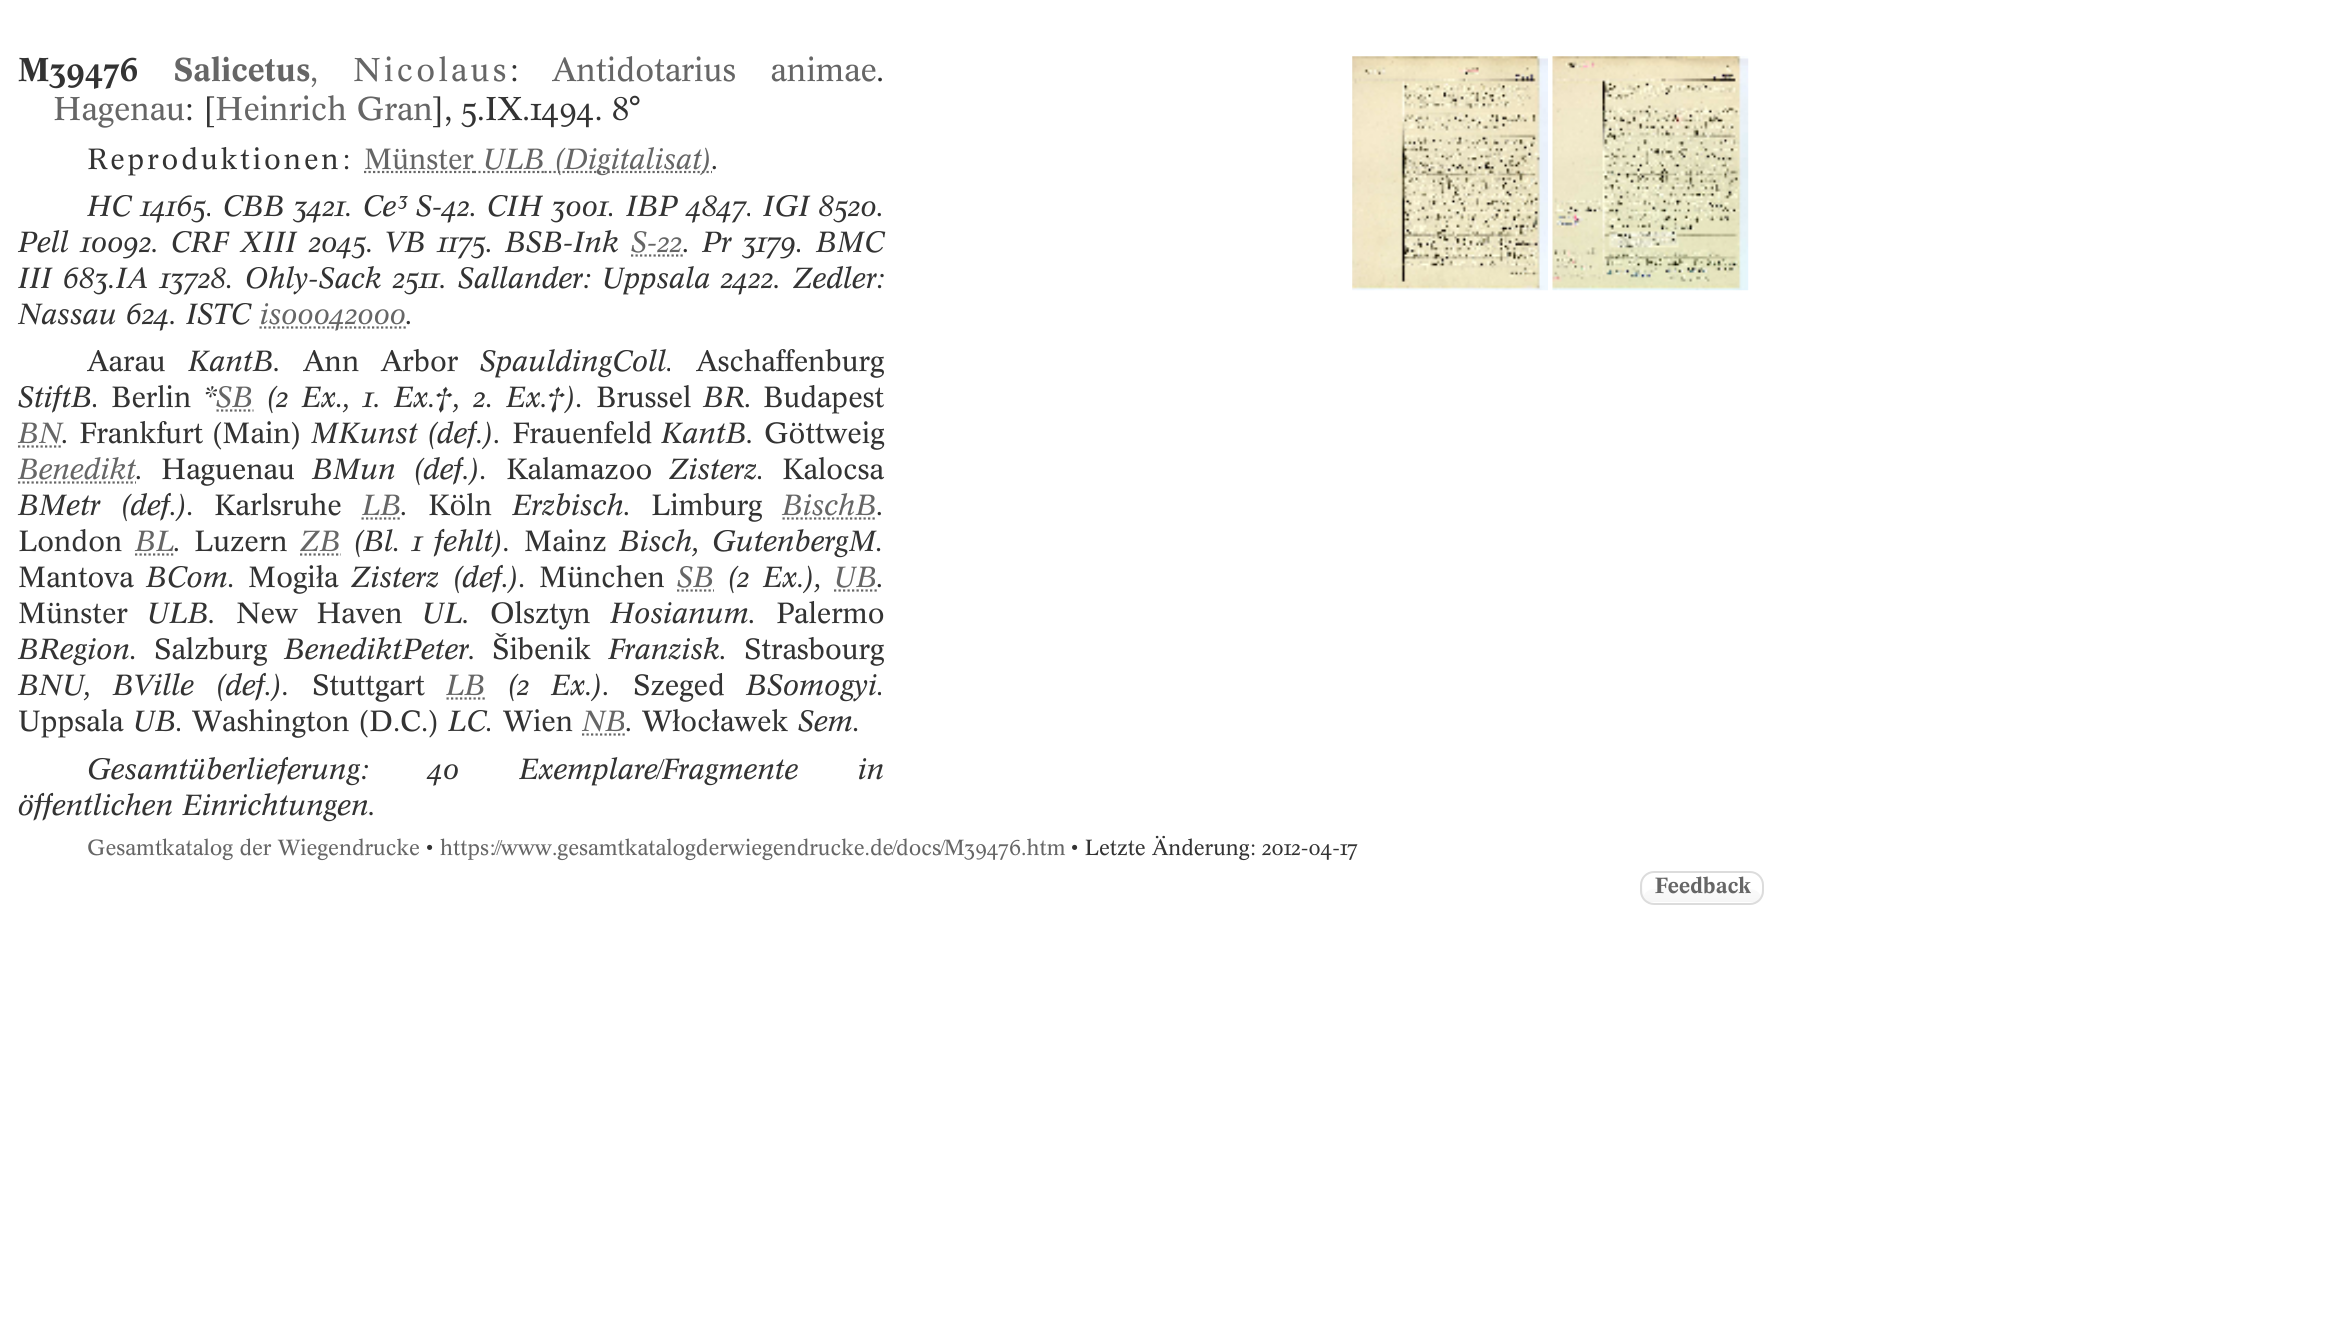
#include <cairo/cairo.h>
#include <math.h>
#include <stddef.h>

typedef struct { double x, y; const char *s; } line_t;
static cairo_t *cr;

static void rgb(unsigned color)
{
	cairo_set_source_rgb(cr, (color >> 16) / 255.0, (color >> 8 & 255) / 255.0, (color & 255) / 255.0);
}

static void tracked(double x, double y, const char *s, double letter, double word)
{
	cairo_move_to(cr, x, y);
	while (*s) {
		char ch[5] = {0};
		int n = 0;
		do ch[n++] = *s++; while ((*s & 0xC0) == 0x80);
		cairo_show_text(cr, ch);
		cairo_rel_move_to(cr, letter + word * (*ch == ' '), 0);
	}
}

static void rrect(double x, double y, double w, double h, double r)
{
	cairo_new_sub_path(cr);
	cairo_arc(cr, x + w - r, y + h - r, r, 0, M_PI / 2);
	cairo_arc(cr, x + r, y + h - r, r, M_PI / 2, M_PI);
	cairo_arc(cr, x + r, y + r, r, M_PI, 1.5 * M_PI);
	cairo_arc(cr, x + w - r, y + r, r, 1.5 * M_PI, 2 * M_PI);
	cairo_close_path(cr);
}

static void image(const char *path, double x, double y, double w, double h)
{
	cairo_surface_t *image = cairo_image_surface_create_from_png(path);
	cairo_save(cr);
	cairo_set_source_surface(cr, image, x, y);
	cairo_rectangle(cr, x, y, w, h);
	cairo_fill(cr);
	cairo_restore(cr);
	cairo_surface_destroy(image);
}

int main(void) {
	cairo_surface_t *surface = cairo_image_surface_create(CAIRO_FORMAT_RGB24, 2342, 1325);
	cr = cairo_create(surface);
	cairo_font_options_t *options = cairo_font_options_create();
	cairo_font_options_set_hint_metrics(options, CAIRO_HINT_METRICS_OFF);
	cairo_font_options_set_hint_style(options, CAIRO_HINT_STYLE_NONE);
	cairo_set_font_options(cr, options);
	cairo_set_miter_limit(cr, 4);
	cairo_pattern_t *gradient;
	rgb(0xffffff);
	cairo_paint(cr);
	cairo_new_path(cr);
	cairo_move_to(cr, 364, 172);
	cairo_line_to(cr, 474, 172);
	rgb(0x666666);
	cairo_set_line_width(cr, 2.2);
	cairo_set_dash(cr, (double[]){2.25, 2.25}, 2, 0);
	cairo_stroke(cr);
	cairo_new_path(cr);
	cairo_move_to(cr, 474, 172);
	cairo_line_to(cr, 476, 172);
	cairo_move_to(cr, 478.5, 172);
	cairo_line_to(cr, 480.5, 172);
	cairo_set_dash(cr, NULL, 0, 0);
	cairo_stroke(cr);
	cairo_new_path(cr);
	cairo_move_to(cr, 483, 172);
	cairo_line_to(cr, 544.5, 172);
	cairo_set_dash(cr, (double[]){2.25, 2.25}, 2, 0);
	cairo_stroke(cr);
	cairo_new_path(cr);
	cairo_move_to(cr, 544.5, 172);
	cairo_line_to(cr, 712, 172);
	cairo_stroke(cr);
	cairo_new_path(cr);
	cairo_move_to(cr, 631, 255.5);
	cairo_line_to(cr, 683, 255.5);
	cairo_stroke(cr);
	cairo_new_path(cr);
	cairo_move_to(cr, 259.5, 327.5);
	cairo_line_to(cr, 406, 327.5);
	cairo_stroke(cr);
	cairo_new_path(cr);
	cairo_move_to(cr, 216.5, 410.5);
	cairo_line_to(cr, 253.5, 410.5);
	cairo_stroke(cr);
	cairo_new_path(cr);
	cairo_move_to(cr, 18, 446.5);
	cairo_line_to(cr, 62.5, 446.5);
	cairo_stroke(cr);
	cairo_new_path(cr);
	cairo_move_to(cr, 18, 482.5);
	cairo_line_to(cr, 136, 482.5);
	cairo_stroke(cr);
	cairo_new_path(cr);
	cairo_move_to(cr, 361.5, 518.5);
	cairo_line_to(cr, 401, 518.5);
	cairo_stroke(cr);
	cairo_new_path(cr);
	cairo_move_to(cr, 782.5, 518.5);
	cairo_line_to(cr, 877, 518.5);
	cairo_stroke(cr);
	cairo_new_path(cr);
	cairo_move_to(cr, 135, 554.5);
	cairo_line_to(cr, 174.5, 554.5);
	cairo_stroke(cr);
	cairo_new_path(cr);
	cairo_move_to(cr, 300, 554.5);
	cairo_line_to(cr, 341, 554.5);
	cairo_stroke(cr);
	cairo_new_path(cr);
	cairo_move_to(cr, 677, 590.5);
	cairo_line_to(cr, 714, 590.5);
	cairo_stroke(cr);
	cairo_new_path(cr);
	cairo_move_to(cr, 834, 590.5);
	cairo_line_to(cr, 877, 590.5);
	cairo_stroke(cr);
	cairo_new_path(cr);
	cairo_move_to(cr, 446.5, 698.5);
	cairo_line_to(cr, 486, 698.5);
	cairo_stroke(cr);
	cairo_new_path(cr);
	cairo_move_to(cr, 582, 734.5);
	cairo_line_to(cr, 626, 734.5);
	cairo_stroke(cr);
	image("img/1.png", 1352, 56, 196, 235);
	image("img/2.png", 1552, 56, 197, 235);
	cairo_save(cr);
	rrect(1640, 871, 124, 34, 14);
	cairo_clip(cr);
	gradient = cairo_pattern_create_linear(1702, 873, 1702, 902);
	cairo_pattern_add_color_stop_rgba(gradient, 0.05, 1, 1, 1, 1);
	cairo_pattern_add_color_stop_rgba(gradient, 1, 0.965, 0.965, 0.965, 1);
	cairo_set_source(cr, gradient);
	cairo_pattern_destroy(gradient);
	cairo_rectangle(cr, 1640, 873, 124, 29);
	cairo_fill(cr);
	cairo_restore(cr);
	rgb(0xffffff);
	cairo_new_path(cr);
	cairo_move_to(cr, 1654, 889);
	cairo_line_to(cr, 1750, 889);
	cairo_curve_to(cr, 1755, 889, 1759, 892, 1761, 896);
	cairo_curve_to(cr, 1762, 892, 1762, 889, 1762, 885);
	cairo_curve_to(cr, 1762, 870, 1746, 873, 1735, 873);
	cairo_line_to(cr, 1670, 873);
	cairo_curve_to(cr, 1659, 873, 1643, 870, 1643, 885);
	cairo_curve_to(cr, 1643, 888, 1643, 892, 1644, 895);
	cairo_curve_to(cr, 1646, 891, 1650, 889, 1654, 889);
	cairo_close_path(cr);
	cairo_fill(cr);
	rrect(1641, 872, 122, 32, 13);
	rgb(0xdcdcdc);
	cairo_set_line_width(cr, 2);
	cairo_set_dash(cr, NULL, 0, 0);
	cairo_stroke(cr);
	cairo_select_font_face(cr, "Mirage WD", CAIRO_FONT_SLANT_NORMAL, CAIRO_FONT_WEIGHT_BOLD);
	cairo_set_font_size(cr, 32.5);
	rgb(0x333333);
	cairo_move_to(cr, 18, 81);
	cairo_show_text(cr, "M39476");
	rgb(0x666666);
	cairo_move_to(cr, 173, 81);
	cairo_show_text(cr, "Salicetus");
	cairo_select_font_face(cr, "Mirage WD", CAIRO_FONT_SLANT_NORMAL, CAIRO_FONT_WEIGHT_NORMAL);
	cairo_move_to(cr, 310, 81);
	cairo_show_text(cr, ",");
	tracked(353, 81, "Nicolaus", 3.25, 0);
	rgb(0x333333);
	cairo_move_to(cr, 509, 81);
	cairo_show_text(cr, ":");
	rgb(0x666666);
	tracked(552, 81, "Antidotarius animae", 0, 25);
	rgb(0x333333);
	cairo_move_to(cr, 876, 81);
	cairo_show_text(cr, ".");
	rgb(0x666666);
	cairo_move_to(cr, 53, 120);
	cairo_show_text(cr, "Hagenau");
	rgb(0x333333);
	cairo_move_to(cr, 184, 120);
	cairo_show_text(cr, ": [");
	rgb(0x666666);
	cairo_move_to(cr, 215, 120);
	cairo_show_text(cr, "Heinrich Gran");
	rgb(0x333333);
	cairo_move_to(cr, 432, 120);
	cairo_show_text(cr, "], 5.IX.1494. 8°");
	cairo_set_font_size(cr, 28.8);
	tracked(87, 169, "Reproduktionen:", 2.9, 0);
	rgb(0x666666);
	cairo_move_to(cr, 364, 169);
	cairo_show_text(cr, "Münster");
	cairo_select_font_face(cr, "Mirage WD", CAIRO_FONT_SLANT_ITALIC, CAIRO_FONT_WEIGHT_NORMAL);
	cairo_move_to(cr, 483, 169);
	cairo_show_text(cr, "ULB");
	cairo_move_to(cr, 554, 169);
	cairo_show_text(cr, "(Digitalisat)");
	rgb(0x333333);
	{
		static const line_t items[] = {
			{712, 169, "."},
			{87, 216, "HC"},
			{141, 216, "14165."},
			{223, 216, "CBB"},
			{294, 216, "3421."},
			{363, 216, "Ce³"},
			{416, 216, "S-42."},
			{487, 216, "CIH"},
			{552, 216, "3001."},
			{626, 216, "IBP"},
			{687, 216, "4847."},
			{763, 216, "IGI 8520."},
			{18, 252, "Pell"},
			{81, 252, "10092."},
		};
		for (size_t i = 0; i < sizeof items / sizeof *items; i++) {
			cairo_move_to(cr, items[i].x, items[i].y);
			cairo_show_text(cr, items[i].s);
		}
	}
	tracked(171, 252, "CRF XIII", 0, 3);
	{
		static const line_t items[] = {
			{309, 252, "2045."},
			{385, 252, "VB"},
			{438, 252, "1175."},
			{505, 252, "BSB-Ink"},
		};
		for (size_t i = 0; i < sizeof items / sizeof *items; i++) {
			cairo_move_to(cr, items[i].x, items[i].y);
			cairo_show_text(cr, items[i].s);
		}
	}
	rgb(0x666666);
	cairo_move_to(cr, 631, 252);
	cairo_show_text(cr, "S-22");
	rgb(0x333333);
	{
		static const line_t items[] = {
			{683, 252, "."},
			{702, 252, "Pr"},
			{743, 252, "3179."},
			{816, 252, "BMC"},
			{18, 288, "III"},
		};
		for (size_t i = 0; i < sizeof items / sizeof *items; i++) {
			cairo_move_to(cr, items[i].x, items[i].y);
			cairo_show_text(cr, items[i].s);
		}
	}
	tracked(63, 288, "683.IA 13728.", 0, 2);
	cairo_move_to(cr, 245, 288);
	cairo_show_text(cr, "Ohly-Sack");
	cairo_move_to(cr, 393, 288);
	cairo_show_text(cr, "2511.");
	tracked(458, 288, "Sallander: Uppsala", 0, 2);
	{
		static const line_t items[] = {
			{721, 288, "2422."},
			{793, 288, "Zedler:"},
			{18, 324, "Nassau 624. ISTC"},
		};
		for (size_t i = 0; i < sizeof items / sizeof *items; i++) {
			cairo_move_to(cr, items[i].x, items[i].y);
			cairo_show_text(cr, items[i].s);
		}
	}
	rgb(0x666666);
	cairo_move_to(cr, 260, 324);
	cairo_show_text(cr, "is00042000");
	rgb(0x333333);
	cairo_move_to(cr, 406, 324);
	cairo_show_text(cr, ".");
	cairo_select_font_face(cr, "Mirage WD", CAIRO_FONT_SLANT_NORMAL, CAIRO_FONT_WEIGHT_NORMAL);
	cairo_move_to(cr, 87, 371);
	cairo_show_text(cr, "Aarau");
	cairo_select_font_face(cr, "Mirage WD", CAIRO_FONT_SLANT_ITALIC, CAIRO_FONT_WEIGHT_NORMAL);
	cairo_move_to(cr, 188, 371);
	cairo_show_text(cr, "KantB.");
	cairo_select_font_face(cr, "Mirage WD", CAIRO_FONT_SLANT_NORMAL, CAIRO_FONT_WEIGHT_NORMAL);
	tracked(303, 371, "Ann Arbor", 0, 13);
	cairo_select_font_face(cr, "Mirage WD", CAIRO_FONT_SLANT_ITALIC, CAIRO_FONT_WEIGHT_NORMAL);
	cairo_move_to(cr, 480, 371);
	cairo_show_text(cr, "SpauldingColl.");
	cairo_select_font_face(cr, "Mirage WD", CAIRO_FONT_SLANT_NORMAL, CAIRO_FONT_WEIGHT_NORMAL);
	cairo_move_to(cr, 696, 371);
	cairo_show_text(cr, "Aschaffenburg");
	cairo_select_font_face(cr, "Mirage WD", CAIRO_FONT_SLANT_ITALIC, CAIRO_FONT_WEIGHT_NORMAL);
	cairo_move_to(cr, 18, 407);
	cairo_show_text(cr, "StiftB.");
	cairo_select_font_face(cr, "Mirage WD", CAIRO_FONT_SLANT_NORMAL, CAIRO_FONT_WEIGHT_NORMAL);
	cairo_move_to(cr, 111, 407);
	cairo_show_text(cr, "Berlin");
	cairo_select_font_face(cr, "Mirage WD", CAIRO_FONT_SLANT_ITALIC, CAIRO_FONT_WEIGHT_NORMAL);
	cairo_move_to(cr, 203, 407);
	cairo_show_text(cr, "*");
	rgb(0x666666);
	cairo_move_to(cr, 216, 407);
	cairo_show_text(cr, "SB");
	rgb(0x333333);
	tracked(266, 407, "(2 Ex., 1. Ex.†, 2. Ex.†).", 0, 3.75);
	cairo_select_font_face(cr, "Mirage WD", CAIRO_FONT_SLANT_NORMAL, CAIRO_FONT_WEIGHT_NORMAL);
	cairo_move_to(cr, 596, 407);
	cairo_show_text(cr, "Brussel");
	cairo_select_font_face(cr, "Mirage WD", CAIRO_FONT_SLANT_ITALIC, CAIRO_FONT_WEIGHT_NORMAL);
	cairo_move_to(cr, 703, 407);
	cairo_show_text(cr, "BR.");
	cairo_select_font_face(cr, "Mirage WD", CAIRO_FONT_SLANT_NORMAL, CAIRO_FONT_WEIGHT_NORMAL);
	cairo_move_to(cr, 763, 407);
	cairo_show_text(cr, "Budapest");
	cairo_select_font_face(cr, "Mirage WD", CAIRO_FONT_SLANT_ITALIC, CAIRO_FONT_WEIGHT_NORMAL);
	rgb(0x666666);
	cairo_move_to(cr, 18, 443);
	cairo_show_text(cr, "BN");
	rgb(0x333333);
	cairo_move_to(cr, 62, 443);
	cairo_show_text(cr, ".");
	cairo_select_font_face(cr, "Mirage WD", CAIRO_FONT_SLANT_NORMAL, CAIRO_FONT_WEIGHT_NORMAL);
	cairo_move_to(cr, 79, 443);
	cairo_show_text(cr, "Frankfurt (Main)");
	cairo_select_font_face(cr, "Mirage WD", CAIRO_FONT_SLANT_ITALIC, CAIRO_FONT_WEIGHT_NORMAL);
	cairo_move_to(cr, 311, 443);
	cairo_show_text(cr, "MKunst (def.).");
	cairo_select_font_face(cr, "Mirage WD", CAIRO_FONT_SLANT_NORMAL, CAIRO_FONT_WEIGHT_NORMAL);
	cairo_move_to(cr, 512, 443);
	cairo_show_text(cr, "Frauenfeld");
	cairo_select_font_face(cr, "Mirage WD", CAIRO_FONT_SLANT_ITALIC, CAIRO_FONT_WEIGHT_NORMAL);
	cairo_move_to(cr, 661, 443);
	cairo_show_text(cr, "KantB.");
	cairo_select_font_face(cr, "Mirage WD", CAIRO_FONT_SLANT_NORMAL, CAIRO_FONT_WEIGHT_NORMAL);
	cairo_move_to(cr, 764, 443);
	cairo_show_text(cr, "Göttweig");
	cairo_select_font_face(cr, "Mirage WD", CAIRO_FONT_SLANT_ITALIC, CAIRO_FONT_WEIGHT_NORMAL);
	rgb(0x666666);
	cairo_move_to(cr, 18, 479);
	cairo_show_text(cr, "Benedikt");
	rgb(0x333333);
	cairo_move_to(cr, 136, 479);
	cairo_show_text(cr, ".");
	cairo_select_font_face(cr, "Mirage WD", CAIRO_FONT_SLANT_NORMAL, CAIRO_FONT_WEIGHT_NORMAL);
	cairo_move_to(cr, 161, 479);
	cairo_show_text(cr, "Haguenau");
	cairo_select_font_face(cr, "Mirage WD", CAIRO_FONT_SLANT_ITALIC, CAIRO_FONT_WEIGHT_NORMAL);
	tracked(312, 479, "BMun (def.).", 0, 8);
	cairo_select_font_face(cr, "Mirage WD", CAIRO_FONT_SLANT_NORMAL, CAIRO_FONT_WEIGHT_NORMAL);
	cairo_move_to(cr, 506, 479);
	cairo_show_text(cr, "Kalamazoo");
	cairo_select_font_face(cr, "Mirage WD", CAIRO_FONT_SLANT_ITALIC, CAIRO_FONT_WEIGHT_NORMAL);
	cairo_move_to(cr, 669, 479);
	cairo_show_text(cr, "Zisterz.");
	cairo_select_font_face(cr, "Mirage WD", CAIRO_FONT_SLANT_NORMAL, CAIRO_FONT_WEIGHT_NORMAL);
	cairo_move_to(cr, 782, 479);
	cairo_show_text(cr, "Kalocsa");
	cairo_select_font_face(cr, "Mirage WD", CAIRO_FONT_SLANT_ITALIC, CAIRO_FONT_WEIGHT_NORMAL);
	tracked(18, 515, "BMetr (def.).", 0, 11);
	cairo_select_font_face(cr, "Mirage WD", CAIRO_FONT_SLANT_NORMAL, CAIRO_FONT_WEIGHT_NORMAL);
	cairo_move_to(cr, 214, 515);
	cairo_show_text(cr, "Karlsruhe");
	cairo_select_font_face(cr, "Mirage WD", CAIRO_FONT_SLANT_ITALIC, CAIRO_FONT_WEIGHT_NORMAL);
	rgb(0x666666);
	cairo_move_to(cr, 362, 515);
	cairo_show_text(cr, "LB");
	rgb(0x333333);
	cairo_move_to(cr, 401, 515);
	cairo_show_text(cr, ".");
	cairo_select_font_face(cr, "Mirage WD", CAIRO_FONT_SLANT_NORMAL, CAIRO_FONT_WEIGHT_NORMAL);
	cairo_move_to(cr, 428, 515);
	cairo_show_text(cr, "Köln");
	cairo_select_font_face(cr, "Mirage WD", CAIRO_FONT_SLANT_ITALIC, CAIRO_FONT_WEIGHT_NORMAL);
	cairo_move_to(cr, 512, 515);
	cairo_show_text(cr, "Erzbisch.");
	cairo_select_font_face(cr, "Mirage WD", CAIRO_FONT_SLANT_NORMAL, CAIRO_FONT_WEIGHT_NORMAL);
	cairo_move_to(cr, 651, 515);
	cairo_show_text(cr, "Limburg");
	cairo_select_font_face(cr, "Mirage WD", CAIRO_FONT_SLANT_ITALIC, CAIRO_FONT_WEIGHT_NORMAL);
	rgb(0x666666);
	cairo_move_to(cr, 782, 515);
	cairo_show_text(cr, "BischB");
	rgb(0x333333);
	cairo_move_to(cr, 877, 515);
	cairo_show_text(cr, ".");
	cairo_select_font_face(cr, "Mirage WD", CAIRO_FONT_SLANT_NORMAL, CAIRO_FONT_WEIGHT_NORMAL);
	cairo_move_to(cr, 18, 551);
	cairo_show_text(cr, "London");
	cairo_select_font_face(cr, "Mirage WD", CAIRO_FONT_SLANT_ITALIC, CAIRO_FONT_WEIGHT_NORMAL);
	rgb(0x666666);
	cairo_move_to(cr, 135, 551);
	cairo_show_text(cr, "BL");
	rgb(0x333333);
	cairo_move_to(cr, 174, 551);
	cairo_show_text(cr, ".");
	cairo_select_font_face(cr, "Mirage WD", CAIRO_FONT_SLANT_NORMAL, CAIRO_FONT_WEIGHT_NORMAL);
	cairo_move_to(cr, 194, 551);
	cairo_show_text(cr, "Luzern");
	cairo_select_font_face(cr, "Mirage WD", CAIRO_FONT_SLANT_ITALIC, CAIRO_FONT_WEIGHT_NORMAL);
	rgb(0x666666);
	cairo_move_to(cr, 300, 551);
	cairo_show_text(cr, "ZB");
	rgb(0x333333);
	tracked(353, 551, "(Bl. 1 fehlt).", 0, 3);
	cairo_select_font_face(cr, "Mirage WD", CAIRO_FONT_SLANT_NORMAL, CAIRO_FONT_WEIGHT_NORMAL);
	cairo_move_to(cr, 524, 551);
	cairo_show_text(cr, "Mainz");
	cairo_select_font_face(cr, "Mirage WD", CAIRO_FONT_SLANT_ITALIC, CAIRO_FONT_WEIGHT_NORMAL);
	tracked(619, 551, "Bisch, GutenbergM.", 0, 3);
	cairo_select_font_face(cr, "Mirage WD", CAIRO_FONT_SLANT_NORMAL, CAIRO_FONT_WEIGHT_NORMAL);
	cairo_move_to(cr, 18, 587);
	cairo_show_text(cr, "Mantova");
	cairo_select_font_face(cr, "Mirage WD", CAIRO_FONT_SLANT_ITALIC, CAIRO_FONT_WEIGHT_NORMAL);
	cairo_move_to(cr, 146, 587);
	cairo_show_text(cr, "BCom.");
	cairo_select_font_face(cr, "Mirage WD", CAIRO_FONT_SLANT_NORMAL, CAIRO_FONT_WEIGHT_NORMAL);
	cairo_move_to(cr, 248, 587);
	cairo_show_text(cr, "Mogiła");
	cairo_select_font_face(cr, "Mirage WD", CAIRO_FONT_SLANT_ITALIC, CAIRO_FONT_WEIGHT_NORMAL);
	tracked(351, 587, "Zisterz (def.).", 0, 4);
	cairo_select_font_face(cr, "Mirage WD", CAIRO_FONT_SLANT_NORMAL, CAIRO_FONT_WEIGHT_NORMAL);
	cairo_move_to(cr, 539, 587);
	cairo_show_text(cr, "München");
	cairo_select_font_face(cr, "Mirage WD", CAIRO_FONT_SLANT_ITALIC, CAIRO_FONT_WEIGHT_NORMAL);
	rgb(0x666666);
	cairo_move_to(cr, 677, 587);
	cairo_show_text(cr, "SB");
	rgb(0x333333);
	tracked(727, 587, "(2 Ex.),", 0, 4);
	rgb(0x666666);
	cairo_move_to(cr, 834, 587);
	cairo_show_text(cr, "UB");
	rgb(0x333333);
	cairo_move_to(cr, 877, 587);
	cairo_show_text(cr, ".");
	cairo_select_font_face(cr, "Mirage WD", CAIRO_FONT_SLANT_NORMAL, CAIRO_FONT_WEIGHT_NORMAL);
	cairo_move_to(cr, 18, 623);
	cairo_show_text(cr, "Münster");
	cairo_select_font_face(cr, "Mirage WD", CAIRO_FONT_SLANT_ITALIC, CAIRO_FONT_WEIGHT_NORMAL);
	cairo_move_to(cr, 147, 623);
	cairo_show_text(cr, "ULB.");
	cairo_select_font_face(cr, "Mirage WD", CAIRO_FONT_SLANT_NORMAL, CAIRO_FONT_WEIGHT_NORMAL);
	tracked(236, 623, "New Haven", 0, 10);
	cairo_select_font_face(cr, "Mirage WD", CAIRO_FONT_SLANT_ITALIC, CAIRO_FONT_WEIGHT_NORMAL);
	cairo_move_to(cr, 422, 623);
	cairo_show_text(cr, "UL.");
	cairo_select_font_face(cr, "Mirage WD", CAIRO_FONT_SLANT_NORMAL, CAIRO_FONT_WEIGHT_NORMAL);
	cairo_move_to(cr, 490, 623);
	cairo_show_text(cr, "Olsztyn");
	cairo_select_font_face(cr, "Mirage WD", CAIRO_FONT_SLANT_ITALIC, CAIRO_FONT_WEIGHT_NORMAL);
	cairo_move_to(cr, 610, 623);
	cairo_show_text(cr, "Hosianum.");
	cairo_select_font_face(cr, "Mirage WD", CAIRO_FONT_SLANT_NORMAL, CAIRO_FONT_WEIGHT_NORMAL);
	cairo_move_to(cr, 776, 623);
	cairo_show_text(cr, "Palermo");
	cairo_select_font_face(cr, "Mirage WD", CAIRO_FONT_SLANT_ITALIC, CAIRO_FONT_WEIGHT_NORMAL);
	cairo_move_to(cr, 18, 659);
	cairo_show_text(cr, "BRegion.");
	cairo_select_font_face(cr, "Mirage WD", CAIRO_FONT_SLANT_NORMAL, CAIRO_FONT_WEIGHT_NORMAL);
	cairo_move_to(cr, 154, 659);
	cairo_show_text(cr, "Salzburg");
	cairo_select_font_face(cr, "Mirage WD", CAIRO_FONT_SLANT_ITALIC, CAIRO_FONT_WEIGHT_NORMAL);
	cairo_move_to(cr, 284, 659);
	cairo_show_text(cr, "BenediktPeter.");
	cairo_select_font_face(cr, "Mirage WD", CAIRO_FONT_SLANT_NORMAL, CAIRO_FONT_WEIGHT_NORMAL);
	cairo_move_to(cr, 492, 659);
	cairo_show_text(cr, "Šibenik");
	cairo_select_font_face(cr, "Mirage WD", CAIRO_FONT_SLANT_ITALIC, CAIRO_FONT_WEIGHT_NORMAL);
	cairo_move_to(cr, 608, 659);
	cairo_show_text(cr, "Franzisk.");
	cairo_select_font_face(cr, "Mirage WD", CAIRO_FONT_SLANT_NORMAL, CAIRO_FONT_WEIGHT_NORMAL);
	cairo_move_to(cr, 744, 659);
	cairo_show_text(cr, "Strasbourg");
	cairo_select_font_face(cr, "Mirage WD", CAIRO_FONT_SLANT_ITALIC, CAIRO_FONT_WEIGHT_NORMAL);
	tracked(18, 695, "BNU, BVille (def.).", 0, 12);
	cairo_select_font_face(cr, "Mirage WD", CAIRO_FONT_SLANT_NORMAL, CAIRO_FONT_WEIGHT_NORMAL);
	cairo_move_to(cr, 312, 695);
	cairo_show_text(cr, "Stuttgart");
	cairo_select_font_face(cr, "Mirage WD", CAIRO_FONT_SLANT_ITALIC, CAIRO_FONT_WEIGHT_NORMAL);
	rgb(0x666666);
	cairo_move_to(cr, 446, 695);
	cairo_show_text(cr, "LB");
	rgb(0x333333);
	tracked(507, 695, "(2 Ex.).", 0, 12);
	cairo_select_font_face(cr, "Mirage WD", CAIRO_FONT_SLANT_NORMAL, CAIRO_FONT_WEIGHT_NORMAL);
	cairo_move_to(cr, 633, 695);
	cairo_show_text(cr, "Szeged");
	cairo_select_font_face(cr, "Mirage WD", CAIRO_FONT_SLANT_ITALIC, CAIRO_FONT_WEIGHT_NORMAL);
	cairo_move_to(cr, 746, 695);
	cairo_show_text(cr, "BSomogyi.");
	cairo_select_font_face(cr, "Mirage WD", CAIRO_FONT_SLANT_NORMAL, CAIRO_FONT_WEIGHT_NORMAL);
	cairo_move_to(cr, 18, 731);
	cairo_show_text(cr, "Uppsala");
	cairo_select_font_face(cr, "Mirage WD", CAIRO_FONT_SLANT_ITALIC, CAIRO_FONT_WEIGHT_NORMAL);
	cairo_move_to(cr, 133, 731);
	cairo_show_text(cr, "UB.");
	cairo_select_font_face(cr, "Mirage WD", CAIRO_FONT_SLANT_NORMAL, CAIRO_FONT_WEIGHT_NORMAL);
	cairo_move_to(cr, 192, 731);
	cairo_show_text(cr, "Washington (D.C.)");
	cairo_select_font_face(cr, "Mirage WD", CAIRO_FONT_SLANT_ITALIC, CAIRO_FONT_WEIGHT_NORMAL);
	cairo_move_to(cr, 448, 731);
	cairo_show_text(cr, "LC.");
	cairo_select_font_face(cr, "Mirage WD", CAIRO_FONT_SLANT_NORMAL, CAIRO_FONT_WEIGHT_NORMAL);
	cairo_move_to(cr, 503, 731);
	cairo_show_text(cr, "Wien");
	cairo_select_font_face(cr, "Mirage WD", CAIRO_FONT_SLANT_ITALIC, CAIRO_FONT_WEIGHT_NORMAL);
	rgb(0x666666);
	cairo_move_to(cr, 582, 731);
	cairo_show_text(cr, "NB");
	rgb(0x333333);
	cairo_move_to(cr, 626, 731);
	cairo_show_text(cr, ".");
	cairo_select_font_face(cr, "Mirage WD", CAIRO_FONT_SLANT_NORMAL, CAIRO_FONT_WEIGHT_NORMAL);
	cairo_move_to(cr, 642, 731);
	cairo_show_text(cr, "Włocławek");
	cairo_select_font_face(cr, "Mirage WD", CAIRO_FONT_SLANT_ITALIC, CAIRO_FONT_WEIGHT_NORMAL);
	cairo_move_to(cr, 798, 731);
	cairo_show_text(cr, "Sem.");
	tracked(87, 779, "Gesamtüberlieferung: 40 Exemplare/Fragmente in", 0, 50.5);
	cairo_move_to(cr, 18, 815);
	cairo_show_text(cr, "öffentlichen Einrichtungen.");
	cairo_select_font_face(cr, "Mirage WD", CAIRO_FONT_SLANT_NORMAL, CAIRO_FONT_WEIGHT_NORMAL);
	cairo_set_font_size(cr, 21.6);
	rgb(0x666666);
	cairo_move_to(cr, 87, 855);
	cairo_show_text(cr, "Gesamtkatalog der Wiegendrucke");
	rgb(0x333333);
	cairo_move_to(cr, 426, 855);
	cairo_show_text(cr, "•");
	rgb(0x666666);
	cairo_move_to(cr, 440, 855);
	cairo_show_text(cr, "https://www.gesamtkatalogderwiegendrucke.de/docs/M39476.htm");
	rgb(0x333333);
	cairo_move_to(cr, 1071, 855);
	cairo_show_text(cr, "• Letzte Änderung: 2012-04-17");
	cairo_select_font_face(cr, "Mirage WD", CAIRO_FONT_SLANT_NORMAL, CAIRO_FONT_WEIGHT_BOLD);
	rgb(0x666666);
	cairo_move_to(cr, 1655, 893);
	cairo_show_text(cr, "Feedback");
	cairo_surface_write_to_png(surface, "page.png");
	cairo_font_options_destroy(options);
	cairo_destroy(cr);
	cairo_surface_destroy(surface);
	return 0;
}
